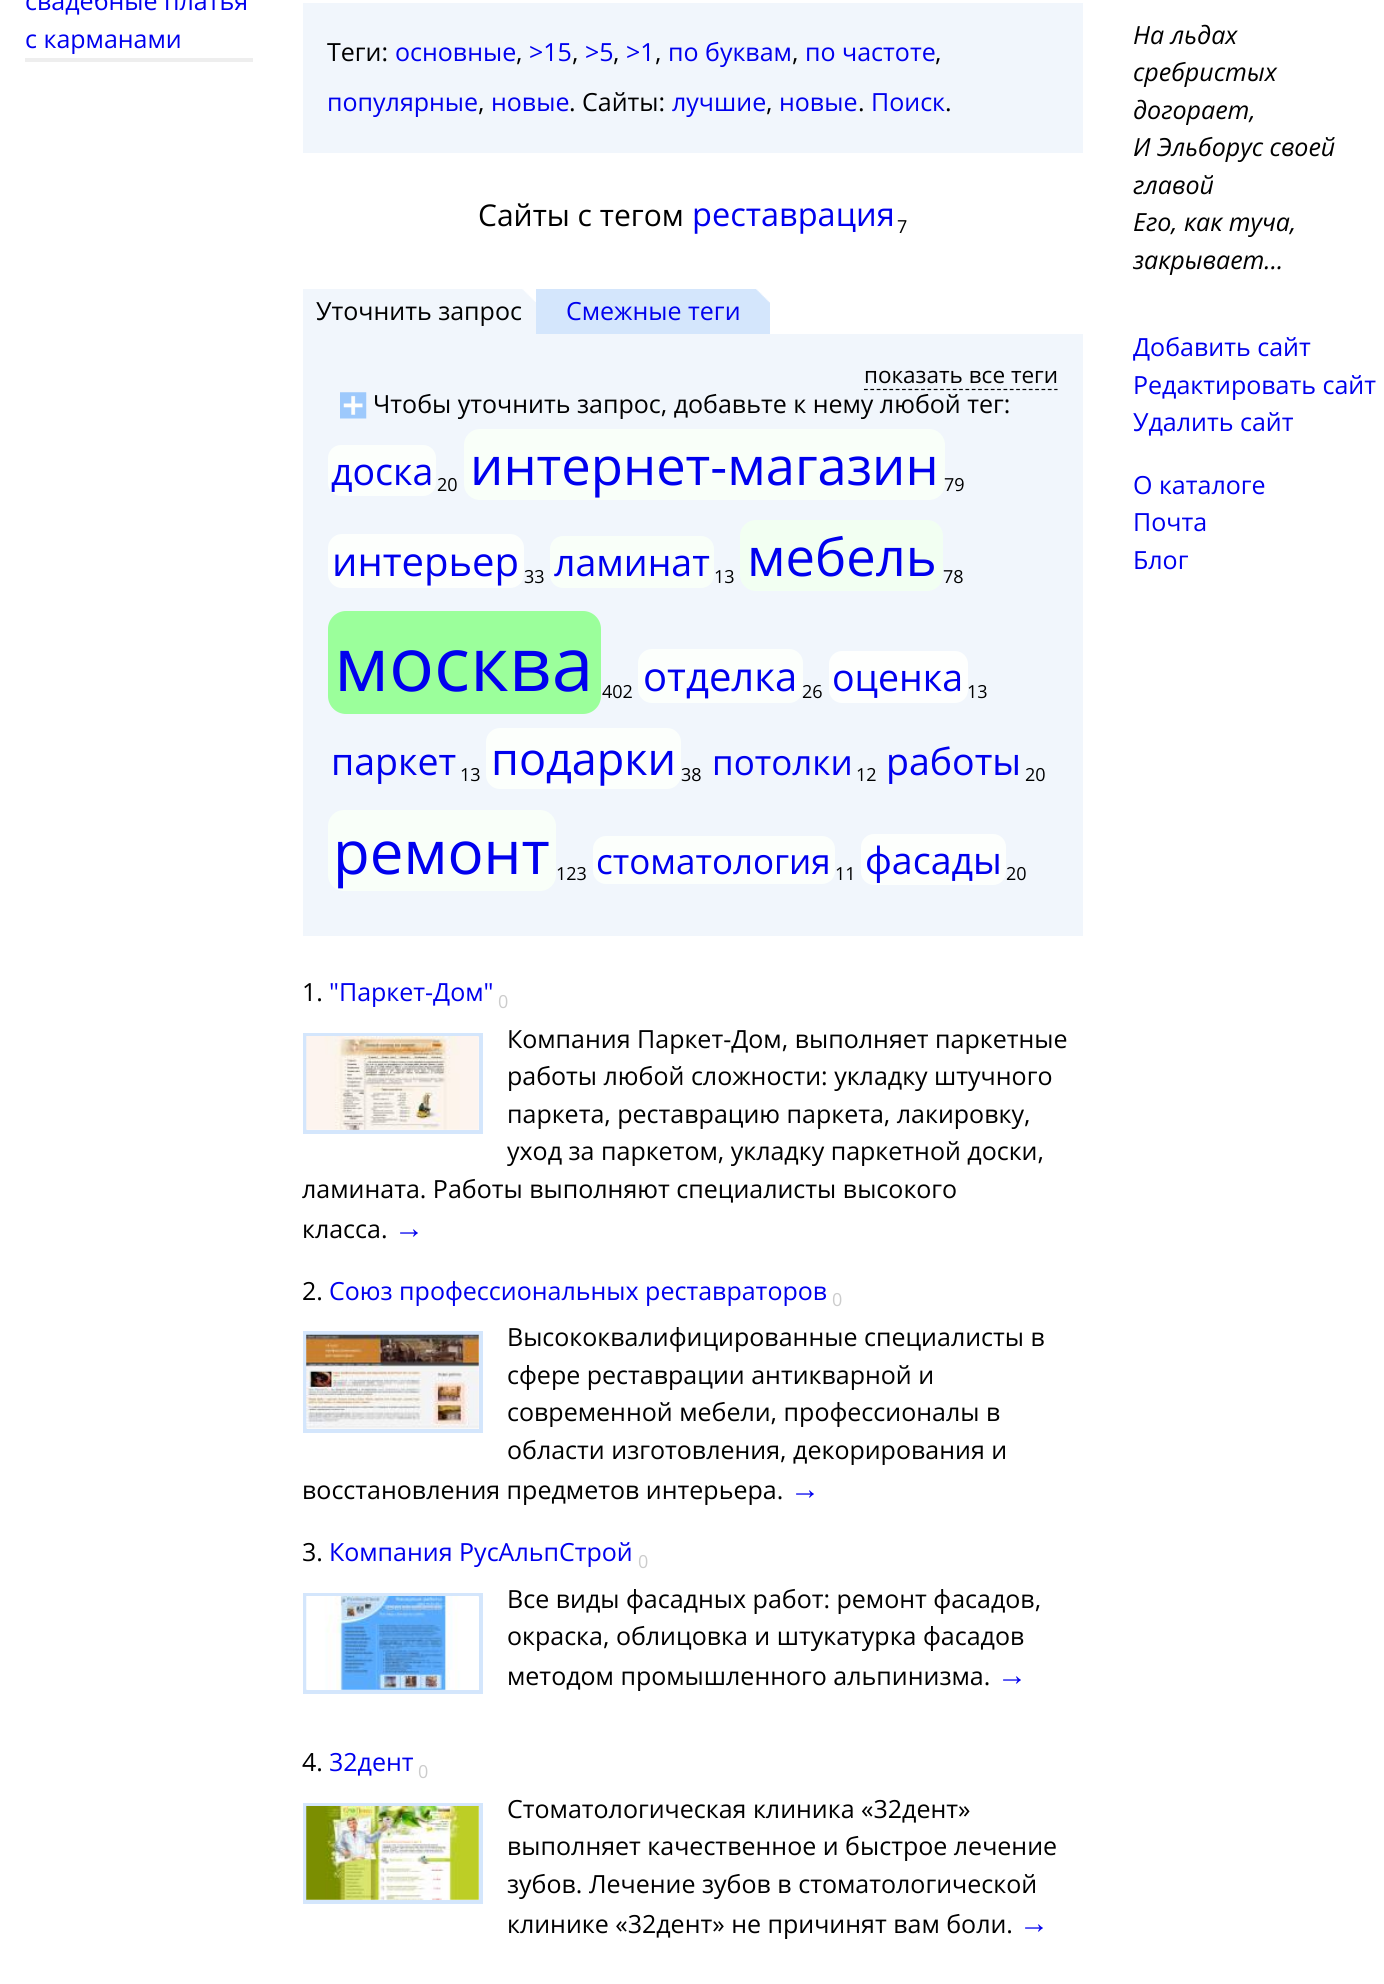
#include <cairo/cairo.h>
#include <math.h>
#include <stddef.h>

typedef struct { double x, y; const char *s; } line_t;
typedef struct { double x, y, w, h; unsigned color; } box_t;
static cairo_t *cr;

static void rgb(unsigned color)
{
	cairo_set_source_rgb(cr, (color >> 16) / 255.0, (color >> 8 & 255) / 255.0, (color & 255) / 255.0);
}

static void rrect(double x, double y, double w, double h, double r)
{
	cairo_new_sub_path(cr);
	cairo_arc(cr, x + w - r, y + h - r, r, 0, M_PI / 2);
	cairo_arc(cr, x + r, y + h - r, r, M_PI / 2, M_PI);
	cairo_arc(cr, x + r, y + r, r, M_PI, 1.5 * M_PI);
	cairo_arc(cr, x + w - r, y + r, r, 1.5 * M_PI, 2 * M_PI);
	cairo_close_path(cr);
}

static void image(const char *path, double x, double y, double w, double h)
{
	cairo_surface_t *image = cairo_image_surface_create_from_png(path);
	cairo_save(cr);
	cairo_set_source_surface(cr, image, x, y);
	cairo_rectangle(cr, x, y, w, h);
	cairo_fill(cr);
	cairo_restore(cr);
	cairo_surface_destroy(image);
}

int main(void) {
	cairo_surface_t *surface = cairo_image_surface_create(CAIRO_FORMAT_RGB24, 1384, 1984);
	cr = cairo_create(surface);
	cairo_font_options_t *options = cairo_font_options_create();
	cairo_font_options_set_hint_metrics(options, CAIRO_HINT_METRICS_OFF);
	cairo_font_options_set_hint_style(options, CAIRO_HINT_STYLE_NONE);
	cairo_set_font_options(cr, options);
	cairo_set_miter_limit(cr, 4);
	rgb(0xffffff);
	cairo_paint(cr);
	{
		static const box_t items[] = {
			{25, 58, 228, 4, 0xeeeeee},
			{303, 3, 780, 150, 0xf1f6fc},
			{303, 289, 233, 45, 0xf1f6fc},
		};
		for (size_t i = 0; i < sizeof items / sizeof *items; i++) {
			rgb(items[i].color);
			cairo_rectangle(cr, items[i].x, items[i].y, items[i].w, items[i].h);
			cairo_fill(cr);
		}
	}
	image("img/1.png", 522, 289, 14, 13);
	rgb(0xd4e6fc);
	cairo_rectangle(cr, 536, 289, 234, 45);
	cairo_fill(cr);
	image("img/2.png", 756, 289, 14, 14);
	rgb(0xf1f6fc);
	cairo_rectangle(cr, 303, 334, 780, 602);
	cairo_fill(cr);
	cairo_new_path(cr);
	cairo_move_to(cr, 864, 389.5);
	cairo_line_to(cr, 1057.5, 389.5);
	rgb(0x000000);
	cairo_set_line_width(cr, 1.2);
	cairo_set_dash(cr, (double[]){3.75, 2.59}, 2, 0);
	cairo_stroke(cr);
	image("img/3.png", 340, 392, 27, 27);
	rgb(0xfcfffc);
	rrect(328, 445, 108, 51, 13);
	cairo_fill(cr);
	rgb(0xf9fff9);
	rrect(464, 429, 481, 71, 16);
	cairo_fill(cr);
	rgb(0xfdfffd);
	rrect(328, 534, 196, 54, 14);
	cairo_fill(cr);
	rgb(0xf9fff9);
	rrect(550, 536, 164, 52, 13);
	cairo_fill(cr);
	rgb(0xf2fff2);
	rrect(740, 520, 203, 71, 16);
	cairo_fill(cr);
	rgb(0x9bff9b);
	rrect(328, 611, 273, 103, 18);
	cairo_fill(cr);
	rgb(0xfcfffc);
	rrect(638, 649, 165, 54, 14);
	cairo_fill(cr);
	rgb(0xfefffe);
	rrect(829, 651, 139, 52, 13);
	cairo_fill(cr);
	rgb(0xfcfffc);
	rrect(486, 728, 195, 61, 14);
	cairo_fill(cr);
	rgb(0xf9fff9);
	rrect(328, 810, 228, 81, 16);
	cairo_fill(cr);
	rgb(0xfcfffc);
	rrect(593, 836, 242, 48, 13);
	cairo_fill(cr);
	rgb(0xfdfffd);
	rrect(861, 834, 145, 51, 13);
	cairo_fill(cr);
	cairo_rectangle(cr, 305, 1035, 176, 97);
	rgb(0xd4e6fc);
	cairo_set_line_width(cr, 4);
	cairo_set_dash(cr, NULL, 0, 0);
	cairo_stroke(cr);
	image("img/4.png", 306, 1036, 173, 94);
	cairo_rectangle(cr, 305, 1333, 176, 98);
	cairo_stroke(cr);
	image("img/5.png", 306, 1334, 173, 95);
	cairo_rectangle(cr, 305, 1595, 176, 97);
	cairo_stroke(cr);
	image("img/6.png", 306, 1596, 173, 94);
	cairo_rectangle(cr, 305, 1805, 176, 97);
	cairo_stroke(cr);
	image("img/7.png", 306, 1806, 173, 94);
	cairo_select_font_face(cr, "Open Sans", CAIRO_FONT_SLANT_NORMAL, CAIRO_FONT_WEIGHT_NORMAL);
	cairo_set_font_size(cr, 25);
	rgb(0x0000ee);
	cairo_move_to(cr, 25, 10);
	cairo_show_text(cr, "свадебные платья");
	cairo_move_to(cr, 25, 48);
	cairo_show_text(cr, "с карманами");
	rgb(0x000000);
	cairo_move_to(cr, 327, 61);
	cairo_show_text(cr, "Теги:");
	rgb(0x0000ee);
	cairo_move_to(cr, 395, 61);
	cairo_show_text(cr, "основные");
	rgb(0x000000);
	cairo_move_to(cr, 516, 61);
	cairo_show_text(cr, ",");
	rgb(0x0000ee);
	cairo_move_to(cr, 529, 61);
	cairo_show_text(cr, ">15");
	rgb(0x000000);
	cairo_move_to(cr, 572, 61);
	cairo_show_text(cr, ",");
	rgb(0x0000ee);
	cairo_move_to(cr, 585, 61);
	cairo_show_text(cr, ">5");
	rgb(0x000000);
	cairo_move_to(cr, 613, 61);
	cairo_show_text(cr, ",");
	rgb(0x0000ee);
	cairo_move_to(cr, 626, 61);
	cairo_show_text(cr, ">1");
	rgb(0x000000);
	cairo_move_to(cr, 655, 61);
	cairo_show_text(cr, ",");
	rgb(0x0000ee);
	cairo_move_to(cr, 668, 61);
	cairo_show_text(cr, "по буквам");
	rgb(0x000000);
	cairo_move_to(cr, 792, 61);
	cairo_show_text(cr, ",");
	rgb(0x0000ee);
	cairo_move_to(cr, 805, 61);
	cairo_show_text(cr, "по частоте");
	rgb(0x000000);
	cairo_move_to(cr, 935, 61);
	cairo_show_text(cr, ",");
	rgb(0x0000ee);
	cairo_move_to(cr, 327, 111);
	cairo_show_text(cr, "популярные");
	rgb(0x000000);
	cairo_move_to(cr, 478, 111);
	cairo_show_text(cr, ",");
	rgb(0x0000ee);
	cairo_move_to(cr, 491, 111);
	cairo_show_text(cr, "новые");
	rgb(0x000000);
	cairo_move_to(cr, 569, 111);
	cairo_show_text(cr, ". Сайты:");
	rgb(0x0000ee);
	cairo_move_to(cr, 672, 111);
	cairo_show_text(cr, "лучшие");
	rgb(0x000000);
	cairo_move_to(cr, 766, 111);
	cairo_show_text(cr, ",");
	rgb(0x0000ee);
	cairo_move_to(cr, 779, 111);
	cairo_show_text(cr, "новые");
	rgb(0x000000);
	cairo_move_to(cr, 858, 111);
	cairo_show_text(cr, ".");
	rgb(0x0000ee);
	cairo_move_to(cr, 871, 111);
	cairo_show_text(cr, "Поиск");
	rgb(0x000000);
	cairo_move_to(cr, 945, 111);
	cairo_show_text(cr, ".");
	cairo_set_font_size(cr, 30);
	cairo_move_to(cr, 478, 226);
	cairo_show_text(cr, "Сайты с тегом");
	cairo_set_font_size(cr, 32.5);
	rgb(0x0000ee);
	cairo_move_to(cr, 692, 226);
	cairo_show_text(cr, "реставрация");
	cairo_set_font_size(cr, 18);
	rgb(0x000000);
	cairo_move_to(cr, 897, 233);
	cairo_show_text(cr, "7");
	cairo_set_font_size(cr, 25);
	cairo_move_to(cr, 316, 320);
	cairo_show_text(cr, "Уточнить запрос");
	rgb(0x0000ee);
	cairo_move_to(cr, 566, 320);
	cairo_show_text(cr, "Смежные теги");
	cairo_set_font_size(cr, 22.5);
	rgb(0x000000);
	cairo_move_to(cr, 864, 383);
	cairo_show_text(cr, "показать все теги");
	cairo_set_font_size(cr, 25);
	cairo_move_to(cr, 373, 413);
	cairo_show_text(cr, "Чтобы уточнить запрос, добавьте к нему любой тег:");
	cairo_set_font_size(cr, 37.5);
	rgb(0x0000ee);
	cairo_move_to(cr, 331, 485);
	cairo_show_text(cr, "доска");
	cairo_set_font_size(cr, 18);
	rgb(0x000000);
	cairo_move_to(cr, 437, 491);
	cairo_show_text(cr, "20");
	cairo_set_font_size(cr, 52.5);
	rgb(0x0000ee);
	cairo_move_to(cr, 470, 485);
	cairo_show_text(cr, "интернет-магазин");
	cairo_set_font_size(cr, 18);
	rgb(0x000000);
	cairo_move_to(cr, 944, 491);
	cairo_show_text(cr, "79");
	cairo_set_font_size(cr, 40);
	rgb(0x0000ee);
	cairo_move_to(cr, 332, 576);
	cairo_show_text(cr, "интерьер");
	cairo_set_font_size(cr, 18);
	rgb(0x000000);
	cairo_move_to(cr, 524, 583);
	cairo_show_text(cr, "33");
	cairo_set_font_size(cr, 37.5);
	rgb(0x0000ee);
	cairo_move_to(cr, 554, 576);
	cairo_show_text(cr, "ламинат");
	cairo_set_font_size(cr, 18);
	rgb(0x000000);
	cairo_move_to(cr, 714, 583);
	cairo_show_text(cr, "13");
	cairo_set_font_size(cr, 52.5);
	rgb(0x0000ee);
	cairo_move_to(cr, 747, 576);
	cairo_show_text(cr, "мебель");
	cairo_set_font_size(cr, 18);
	rgb(0x000000);
	cairo_move_to(cr, 943, 583);
	cairo_show_text(cr, "78");
	cairo_set_font_size(cr, 75);
	rgb(0x0000ee);
	cairo_move_to(cr, 334, 691);
	cairo_show_text(cr, "москва");
	cairo_set_font_size(cr, 18);
	rgb(0x000000);
	cairo_move_to(cr, 602, 698);
	cairo_show_text(cr, "402");
	cairo_set_font_size(cr, 40);
	rgb(0x0000ee);
	cairo_move_to(cr, 643, 691);
	cairo_show_text(cr, "отделка");
	cairo_set_font_size(cr, 18);
	rgb(0x000000);
	cairo_move_to(cr, 802, 698);
	cairo_show_text(cr, "26");
	cairo_set_font_size(cr, 37.5);
	rgb(0x0000ee);
	cairo_move_to(cr, 832, 691);
	cairo_show_text(cr, "оценка");
	cairo_set_font_size(cr, 18);
	rgb(0x000000);
	cairo_move_to(cr, 967, 698);
	cairo_show_text(cr, "13");
	cairo_set_font_size(cr, 37.5);
	rgb(0x0000ee);
	cairo_move_to(cr, 331, 775);
	cairo_show_text(cr, "паркет");
	cairo_set_font_size(cr, 18);
	rgb(0x000000);
	cairo_move_to(cr, 460, 781);
	cairo_show_text(cr, "13");
	cairo_set_font_size(cr, 45);
	rgb(0x0000ee);
	cairo_move_to(cr, 491, 775);
	cairo_show_text(cr, "подарки");
	cairo_set_font_size(cr, 18);
	rgb(0x000000);
	cairo_move_to(cr, 681, 781);
	cairo_show_text(cr, "38");
	cairo_set_font_size(cr, 35);
	rgb(0x0000ee);
	cairo_move_to(cr, 712, 775);
	cairo_show_text(cr, "потолки");
	cairo_set_font_size(cr, 18);
	rgb(0x000000);
	cairo_move_to(cr, 856, 781);
	cairo_show_text(cr, "12");
	cairo_set_font_size(cr, 37.5);
	rgb(0x0000ee);
	cairo_move_to(cr, 886, 775);
	cairo_show_text(cr, "работы");
	cairo_set_font_size(cr, 18);
	rgb(0x000000);
	cairo_move_to(cr, 1025, 781);
	cairo_show_text(cr, "20");
	cairo_set_font_size(cr, 60);
	rgb(0x0000ee);
	cairo_move_to(cr, 333, 874);
	cairo_show_text(cr, "ремонт");
	cairo_set_font_size(cr, 18);
	rgb(0x000000);
	cairo_move_to(cr, 556, 880);
	cairo_show_text(cr, "123");
	cairo_set_font_size(cr, 35);
	rgb(0x0000ee);
	cairo_move_to(cr, 596, 874);
	cairo_show_text(cr, "стоматология");
	cairo_set_font_size(cr, 18);
	rgb(0x000000);
	cairo_move_to(cr, 835, 880);
	cairo_show_text(cr, "11");
	cairo_set_font_size(cr, 37.5);
	rgb(0x0000ee);
	cairo_move_to(cr, 865, 874);
	cairo_show_text(cr, "фасады");
	cairo_set_font_size(cr, 18);
	rgb(0x000000);
	cairo_move_to(cr, 1006, 880);
	cairo_show_text(cr, "20");
	cairo_set_font_size(cr, 25);
	cairo_move_to(cr, 302, 1001);
	cairo_show_text(cr, "1.");
	rgb(0x0000ee);
	cairo_move_to(cr, 329, 1001);
	cairo_show_text(cr, "\"Паркет-Дом\"");
	cairo_set_font_size(cr, 18);
	rgb(0xcccccc);
	cairo_move_to(cr, 498, 1008);
	cairo_show_text(cr, "0");
	cairo_set_font_size(cr, 25);
	rgb(0x000000);
	{
		static const line_t items[] = {
			{507, 1048, "Компания Паркет-Дом, выполняет паркетные"},
			{507, 1085, "работы любой сложности: укладку штучного"},
			{507, 1123, "паркета, реставрацию паркета, лакировку,"},
			{507, 1160, "уход за паркетом, укладку паркетной доски,"},
			{302, 1198, "ламината. Работы выполняют специалисты высокого"},
			{302, 1238, "класса."},
		};
		for (size_t i = 0; i < sizeof items / sizeof *items; i++) {
			cairo_move_to(cr, items[i].x, items[i].y);
			cairo_show_text(cr, items[i].s);
		}
	}
	cairo_select_font_face(cr, "Liberation Sans", CAIRO_FONT_SLANT_NORMAL, CAIRO_FONT_WEIGHT_NORMAL);
	cairo_set_font_size(cr, 30);
	rgb(0x0000ee);
	cairo_move_to(cr, 394, 1238);
	cairo_show_text(cr, "→");
	cairo_select_font_face(cr, "Open Sans", CAIRO_FONT_SLANT_NORMAL, CAIRO_FONT_WEIGHT_NORMAL);
	cairo_set_font_size(cr, 25);
	rgb(0x000000);
	cairo_move_to(cr, 302, 1300);
	cairo_show_text(cr, "2.");
	rgb(0x0000ee);
	cairo_move_to(cr, 329, 1300);
	cairo_show_text(cr, "Союз профессиональных реставраторов");
	cairo_set_font_size(cr, 18);
	rgb(0xcccccc);
	cairo_move_to(cr, 832, 1306);
	cairo_show_text(cr, "0");
	cairo_set_font_size(cr, 25);
	rgb(0x000000);
	{
		static const line_t items[] = {
			{507, 1346, "Высококвалифицированные специалисты в"},
			{507, 1384, "сфере реставрации антикварной и"},
			{507, 1421, "современной мебели, профессионалы в"},
			{507, 1459, "области изготовления, декорирования и"},
			{302, 1499, "восстановления предметов интерьера."},
		};
		for (size_t i = 0; i < sizeof items / sizeof *items; i++) {
			cairo_move_to(cr, items[i].x, items[i].y);
			cairo_show_text(cr, items[i].s);
		}
	}
	cairo_select_font_face(cr, "Liberation Sans", CAIRO_FONT_SLANT_NORMAL, CAIRO_FONT_WEIGHT_NORMAL);
	cairo_set_font_size(cr, 30);
	rgb(0x0000ee);
	cairo_move_to(cr, 790, 1499);
	cairo_show_text(cr, "→");
	cairo_select_font_face(cr, "Open Sans", CAIRO_FONT_SLANT_NORMAL, CAIRO_FONT_WEIGHT_NORMAL);
	cairo_set_font_size(cr, 25);
	rgb(0x000000);
	cairo_move_to(cr, 302, 1561);
	cairo_show_text(cr, "3.");
	rgb(0x0000ee);
	cairo_move_to(cr, 329, 1561);
	cairo_show_text(cr, "Компания РусАльпСтрой");
	cairo_set_font_size(cr, 18);
	rgb(0xcccccc);
	cairo_move_to(cr, 638, 1568);
	cairo_show_text(cr, "0");
	cairo_set_font_size(cr, 25);
	rgb(0x000000);
	{
		static const line_t items[] = {
			{507, 1608, "Все виды фасадных работ: ремонт фасадов,"},
			{507, 1645, "окраска, облицовка и штукатурка фасадов"},
			{507, 1685, "методом промышленного альпинизма."},
		};
		for (size_t i = 0; i < sizeof items / sizeof *items; i++) {
			cairo_move_to(cr, items[i].x, items[i].y);
			cairo_show_text(cr, items[i].s);
		}
	}
	cairo_select_font_face(cr, "Liberation Sans", CAIRO_FONT_SLANT_NORMAL, CAIRO_FONT_WEIGHT_NORMAL);
	cairo_set_font_size(cr, 30);
	rgb(0x0000ee);
	cairo_move_to(cr, 997, 1685);
	cairo_show_text(cr, "→");
	cairo_select_font_face(cr, "Open Sans", CAIRO_FONT_SLANT_NORMAL, CAIRO_FONT_WEIGHT_NORMAL);
	cairo_set_font_size(cr, 25);
	rgb(0x000000);
	cairo_move_to(cr, 302, 1771);
	cairo_show_text(cr, "4.");
	rgb(0x0000ee);
	cairo_move_to(cr, 329, 1771);
	cairo_show_text(cr, "32дент");
	cairo_set_font_size(cr, 18);
	rgb(0xcccccc);
	cairo_move_to(cr, 418, 1778);
	cairo_show_text(cr, "0");
	cairo_set_font_size(cr, 25);
	rgb(0x000000);
	{
		static const line_t items[] = {
			{507, 1818, "Стоматологическая клиника «32дент»"},
			{507, 1855, "выполняет качественное и быстрое лечение"},
			{507, 1893, "зубов. Лечение зубов в стоматологической"},
			{507, 1933, "клинике «32дент» не причинят вам боли."},
		};
		for (size_t i = 0; i < sizeof items / sizeof *items; i++) {
			cairo_move_to(cr, items[i].x, items[i].y);
			cairo_show_text(cr, items[i].s);
		}
	}
	cairo_select_font_face(cr, "Liberation Sans", CAIRO_FONT_SLANT_NORMAL, CAIRO_FONT_WEIGHT_NORMAL);
	cairo_set_font_size(cr, 30);
	rgb(0x0000ee);
	cairo_move_to(cr, 1019, 1933);
	cairo_show_text(cr, "→");
	cairo_select_font_face(cr, "Open Sans", CAIRO_FONT_SLANT_ITALIC, CAIRO_FONT_WEIGHT_NORMAL);
	cairo_set_font_size(cr, 25);
	rgb(0x000000);
	{
		static const line_t items[] = {
			{1133, 44, "На льдах"},
			{1133, 81, "сребристых"},
			{1133, 119, "догорает,"},
			{1133, 156, "И Эльборус своей"},
			{1133, 194, "главой"},
			{1133, 231, "Его, как туча,"},
			{1133, 269, "закрывает..."},
		};
		for (size_t i = 0; i < sizeof items / sizeof *items; i++) {
			cairo_move_to(cr, items[i].x, items[i].y);
			cairo_show_text(cr, items[i].s);
		}
	}
	cairo_select_font_face(cr, "Open Sans", CAIRO_FONT_SLANT_NORMAL, CAIRO_FONT_WEIGHT_NORMAL);
	rgb(0x0000ee);
	{
		static const line_t items[] = {
			{1133, 356, "Добавить сайт"},
			{1133, 394, "Редактировать сайт"},
			{1133, 431, "Удалить сайт"},
			{1133, 494, "О каталоге"},
			{1133, 531, "Почта"},
			{1133, 569, "Блог"},
		};
		for (size_t i = 0; i < sizeof items / sizeof *items; i++) {
			cairo_move_to(cr, items[i].x, items[i].y);
			cairo_show_text(cr, items[i].s);
		}
	}
	cairo_surface_write_to_png(surface, "page.png");
	cairo_font_options_destroy(options);
	cairo_destroy(cr);
	cairo_surface_destroy(surface);
	return 0;
}
